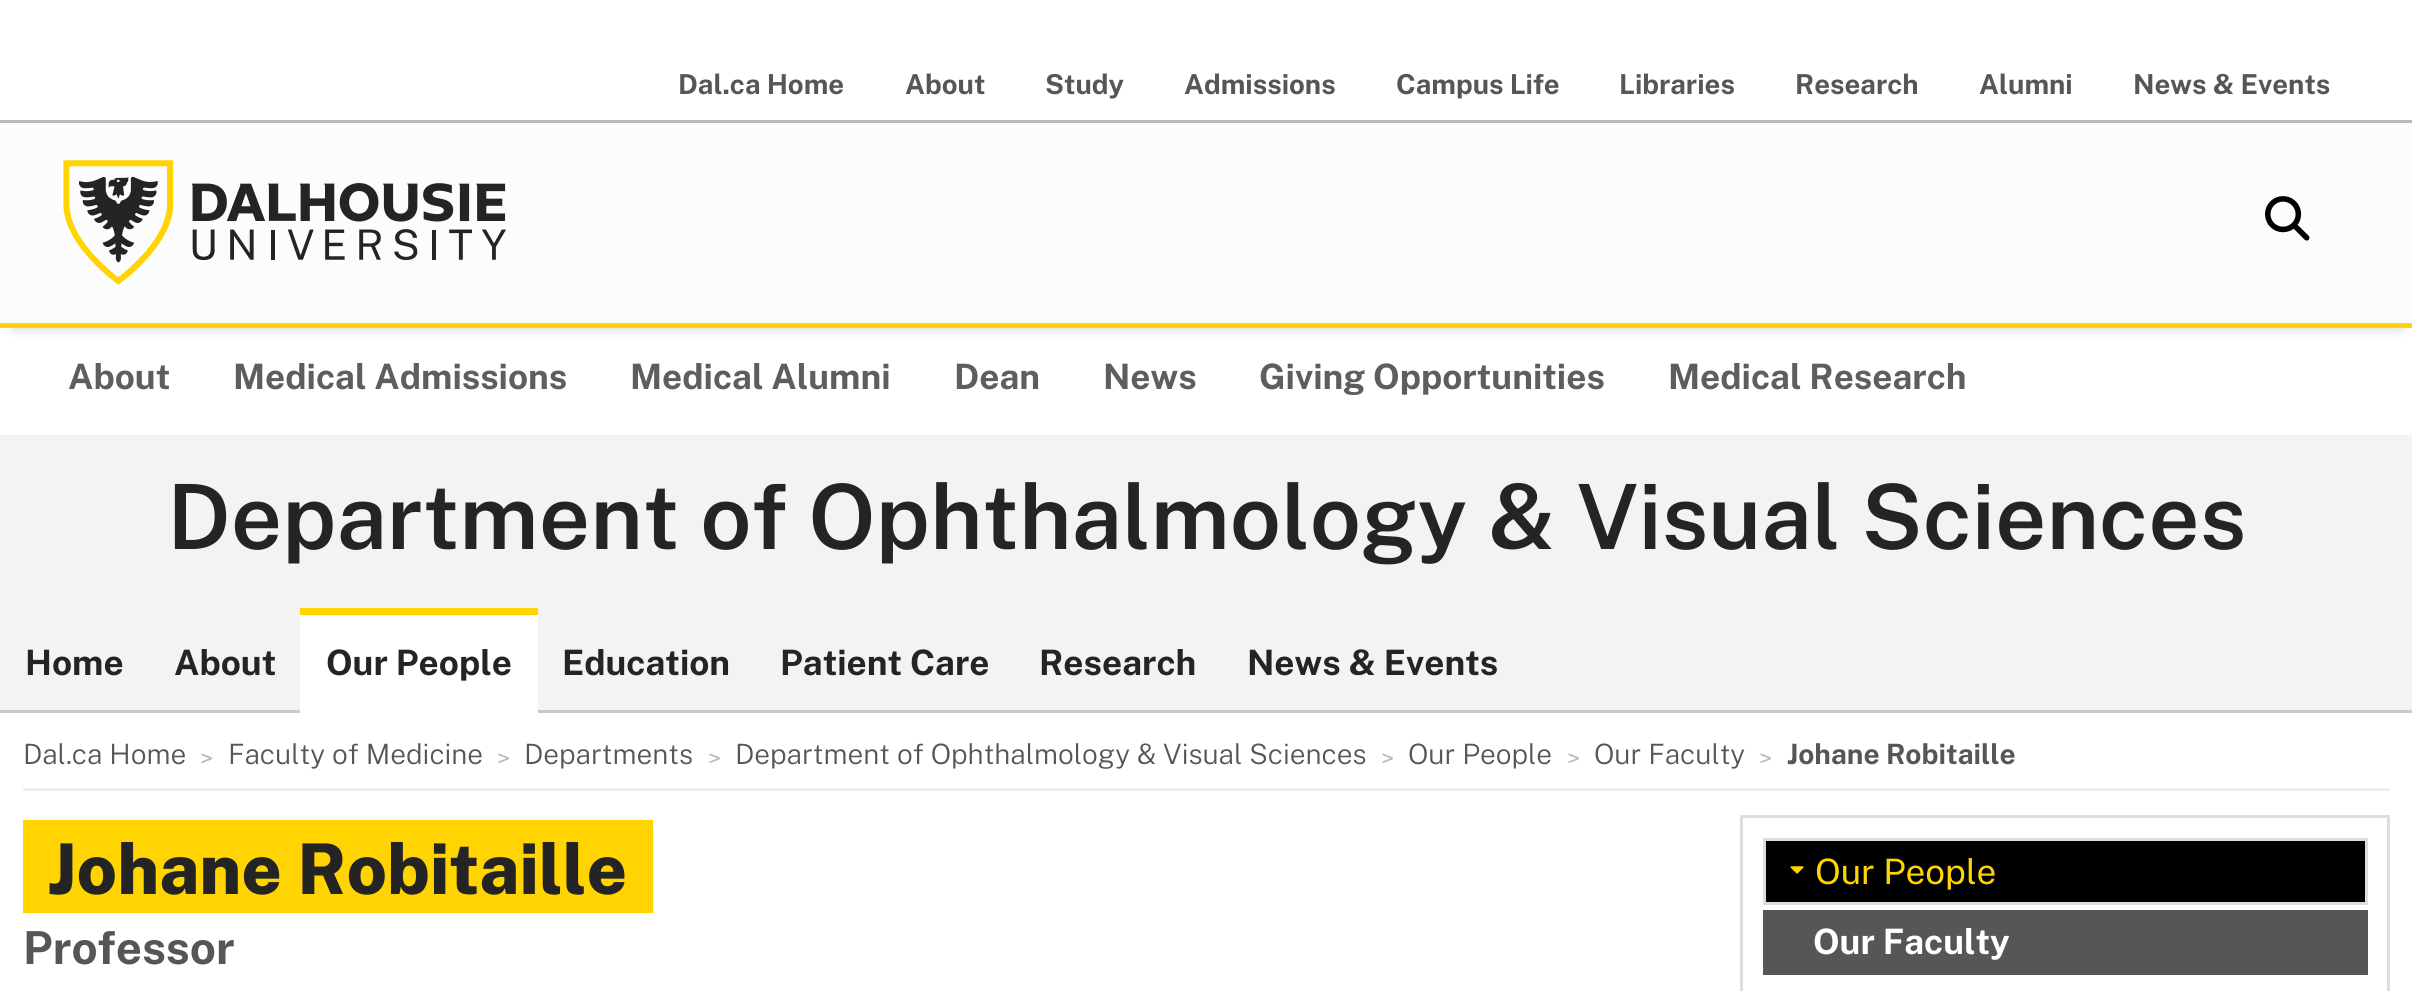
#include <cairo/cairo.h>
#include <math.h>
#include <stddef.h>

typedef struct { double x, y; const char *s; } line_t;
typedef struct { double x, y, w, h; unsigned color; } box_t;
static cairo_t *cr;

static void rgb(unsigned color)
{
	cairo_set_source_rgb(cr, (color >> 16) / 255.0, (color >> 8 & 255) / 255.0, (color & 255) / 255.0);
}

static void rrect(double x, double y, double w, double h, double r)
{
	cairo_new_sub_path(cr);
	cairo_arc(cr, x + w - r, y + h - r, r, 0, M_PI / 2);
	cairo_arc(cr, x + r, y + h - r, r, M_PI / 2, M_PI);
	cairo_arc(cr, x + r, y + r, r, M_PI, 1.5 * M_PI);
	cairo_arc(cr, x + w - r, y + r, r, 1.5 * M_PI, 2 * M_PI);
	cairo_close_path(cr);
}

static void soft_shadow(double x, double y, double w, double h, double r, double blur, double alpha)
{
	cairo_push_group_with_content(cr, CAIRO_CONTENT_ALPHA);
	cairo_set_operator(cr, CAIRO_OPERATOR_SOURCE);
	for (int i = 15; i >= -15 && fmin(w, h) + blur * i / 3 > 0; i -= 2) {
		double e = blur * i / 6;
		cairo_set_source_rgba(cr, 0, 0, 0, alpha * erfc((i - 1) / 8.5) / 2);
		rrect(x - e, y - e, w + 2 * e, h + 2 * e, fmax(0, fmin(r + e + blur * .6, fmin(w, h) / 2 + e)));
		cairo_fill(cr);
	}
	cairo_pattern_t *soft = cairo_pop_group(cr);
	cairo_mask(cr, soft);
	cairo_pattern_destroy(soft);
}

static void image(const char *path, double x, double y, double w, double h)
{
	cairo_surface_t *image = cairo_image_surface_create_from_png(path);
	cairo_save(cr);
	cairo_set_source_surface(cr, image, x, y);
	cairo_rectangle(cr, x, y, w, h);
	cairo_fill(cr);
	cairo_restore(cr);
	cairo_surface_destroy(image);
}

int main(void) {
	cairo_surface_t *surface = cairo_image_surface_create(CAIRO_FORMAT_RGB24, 2412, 991);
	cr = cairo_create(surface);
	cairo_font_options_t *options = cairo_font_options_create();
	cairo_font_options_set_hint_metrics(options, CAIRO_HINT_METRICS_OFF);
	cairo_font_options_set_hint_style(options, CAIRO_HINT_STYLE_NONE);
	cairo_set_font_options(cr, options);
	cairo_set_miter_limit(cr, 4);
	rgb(0xffffff);
	cairo_paint(cr);
	rgb(0xb9b9b9);
	cairo_rectangle(cr, 0, 120, 2412, 3);
	cairo_fill(cr);
	rgb(0x000000);
	soft_shadow(13, 148, 2387, 180, 0, 6, 0.2);
	rgb(0xfcfcfc);
	cairo_rectangle(cr, 0, 123, 2412, 200);
	cairo_fill(cr);
	rgb(0xffd400);
	cairo_rectangle(cr, 0, 323, 2412, 5);
	cairo_fill(cr);
	image("img/1.png", 63, 160, 443, 125);
	image("img/2.png", 2265, 196, 45, 45);
	{
		static const box_t items[] = {
			{0, 435, 2412, 275, 0xf3f3f3},
			{0, 710, 2412, 3, 0xc9c9c9},
			{300, 608, 238, 7, 0xffd400},
			{300, 615, 238, 98, 0xffffff},
			{23, 788, 2367, 3, 0xefeeec},
			{23, 820, 630, 93, 0xffd400},
		};
		for (size_t i = 0; i < sizeof items / sizeof *items; i++) {
			rgb(items[i].color);
			cairo_rectangle(cr, items[i].x, items[i].y, items[i].w, items[i].h);
			cairo_fill(cr);
		}
	}
	cairo_rectangle(cr, 1741.5, 816.5, 647, 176);
	rgb(0xdfdeda);
	cairo_set_line_width(cr, 3);
	cairo_stroke(cr);
	rgb(0x000000);
	cairo_rectangle(cr, 1764.5, 839.5, 602, 64);
	cairo_fill_preserve(cr);
	rgb(0xdfdeda);
	cairo_stroke(cr);
	image("img/3.png", 1790, 866, 14, 8);
	rgb(0x575655);
	cairo_rectangle(cr, 1763, 910, 605, 65);
	cairo_fill(cr);
	cairo_select_font_face(cr, "Public Sans", CAIRO_FONT_SLANT_NORMAL, CAIRO_FONT_WEIGHT_BOLD);
	cairo_set_font_size(cr, 27.5);
	{
		static const line_t items[] = {
			{678, 94, "Dal.ca Home"},
			{905, 94, "About"},
			{1045, 94, "Study"},
			{1184, 94, "Admissions"},
			{1396, 94, "Campus Life"},
			{1619, 94, "Libraries"},
			{1795, 94, "Research"},
			{1979, 94, "Alumni"},
			{2133, 94, "News & Events"},
		};
		for (size_t i = 0; i < sizeof items / sizeof *items; i++) {
			cairo_move_to(cr, items[i].x, items[i].y);
			cairo_show_text(cr, items[i].s);
		}
	}
	cairo_set_font_size(cr, 35);
	rgb(0x5f5e5e);
	{
		static const line_t items[] = {
			{68, 389, "About"},
			{233, 389, "Medical Admissions"},
			{630, 389, "Medical Alumni"},
			{954, 389, "Dean"},
			{1103, 389, "News"},
			{1259, 389, "Giving Opportunities"},
			{1668, 389, "Medical Research"},
		};
		for (size_t i = 0; i < sizeof items / sizeof *items; i++) {
			cairo_move_to(cr, items[i].x, items[i].y);
			cairo_show_text(cr, items[i].s);
		}
	}
	cairo_select_font_face(cr, "Public Sans SemiBold", CAIRO_FONT_SLANT_NORMAL, CAIRO_FONT_WEIGHT_NORMAL);
	cairo_set_font_size(cr, 90);
	rgb(0x242424);
	cairo_move_to(cr, 167, 549);
	cairo_show_text(cr, "Department of Ophthalmology & Visual Sciences");
	cairo_select_font_face(cr, "Public Sans", CAIRO_FONT_SLANT_NORMAL, CAIRO_FONT_WEIGHT_BOLD);
	cairo_set_font_size(cr, 35);
	{
		static const line_t items[] = {
			{25, 675, "Home"},
			{174, 675, "About"},
			{326, 675, "Our People"},
			{562, 675, "Education"},
			{780, 675, "Patient Care"},
			{1039, 675, "Research"},
			{1247, 675, "News & Events"},
		};
		for (size_t i = 0; i < sizeof items / sizeof *items; i++) {
			cairo_move_to(cr, items[i].x, items[i].y);
			cairo_show_text(cr, items[i].s);
		}
	}
	cairo_select_font_face(cr, "Public Sans Light", CAIRO_FONT_SLANT_NORMAL, CAIRO_FONT_WEIGHT_NORMAL);
	cairo_set_font_size(cr, 28);
	rgb(0x575655);
	cairo_move_to(cr, 23, 764);
	cairo_show_text(cr, "Dal.ca Home");
	cairo_set_font_size(cr, 25);
	rgb(0xb9b9b9);
	cairo_move_to(cr, 200, 767);
	cairo_show_text(cr, ">");
	cairo_set_font_size(cr, 28);
	rgb(0x575655);
	cairo_move_to(cr, 228, 764);
	cairo_show_text(cr, "Faculty of Medicine");
	cairo_set_font_size(cr, 25);
	rgb(0xb9b9b9);
	cairo_move_to(cr, 497, 767);
	cairo_show_text(cr, ">");
	cairo_set_font_size(cr, 28);
	rgb(0x575655);
	cairo_move_to(cr, 524, 764);
	cairo_show_text(cr, "Departments");
	cairo_set_font_size(cr, 25);
	rgb(0xb9b9b9);
	cairo_move_to(cr, 708, 767);
	cairo_show_text(cr, ">");
	cairo_set_font_size(cr, 28);
	rgb(0x575655);
	cairo_move_to(cr, 735, 764);
	cairo_show_text(cr, "Department of Ophthalmology & Visual Sciences");
	cairo_set_font_size(cr, 25);
	rgb(0xb9b9b9);
	cairo_move_to(cr, 1381, 767);
	cairo_show_text(cr, ">");
	cairo_set_font_size(cr, 28);
	rgb(0x575655);
	cairo_move_to(cr, 1408, 764);
	cairo_show_text(cr, "Our People");
	cairo_set_font_size(cr, 25);
	rgb(0xb9b9b9);
	cairo_move_to(cr, 1567, 767);
	cairo_show_text(cr, ">");
	cairo_set_font_size(cr, 28);
	rgb(0x575655);
	cairo_move_to(cr, 1594, 764);
	cairo_show_text(cr, "Our Faculty");
	cairo_set_font_size(cr, 25);
	rgb(0xb9b9b9);
	cairo_move_to(cr, 1759, 767);
	cairo_show_text(cr, ">");
	cairo_select_font_face(cr, "Public Sans", CAIRO_FONT_SLANT_NORMAL, CAIRO_FONT_WEIGHT_BOLD);
	cairo_set_font_size(cr, 28);
	rgb(0x575655);
	cairo_move_to(cr, 1787, 764);
	cairo_show_text(cr, "Johane Robitaille");
	cairo_select_font_face(cr, "Public Sans ExtraBold", CAIRO_FONT_SLANT_NORMAL, CAIRO_FONT_WEIGHT_NORMAL);
	cairo_set_font_size(cr, 70);
	rgb(0x242424);
	cairo_move_to(cr, 48, 894);
	cairo_show_text(cr, "Johane Robitaille");
	cairo_select_font_face(cr, "Public Sans", CAIRO_FONT_SLANT_NORMAL, CAIRO_FONT_WEIGHT_BOLD);
	cairo_set_font_size(cr, 45.5);
	rgb(0x575655);
	cairo_move_to(cr, 23, 964);
	cairo_show_text(cr, "Professor");
	cairo_select_font_face(cr, "Public Sans", CAIRO_FONT_SLANT_NORMAL, CAIRO_FONT_WEIGHT_NORMAL);
	cairo_set_font_size(cr, 35);
	rgb(0xffd400);
	cairo_move_to(cr, 1815, 884);
	cairo_show_text(cr, "Our People");
	cairo_select_font_face(cr, "Public Sans", CAIRO_FONT_SLANT_NORMAL, CAIRO_FONT_WEIGHT_BOLD);
	rgb(0xffffff);
	cairo_move_to(cr, 1813, 954);
	cairo_show_text(cr, "Our Faculty");
	cairo_surface_write_to_png(surface, "page.png");
	cairo_font_options_destroy(options);
	cairo_destroy(cr);
	cairo_surface_destroy(surface);
	return 0;
}
